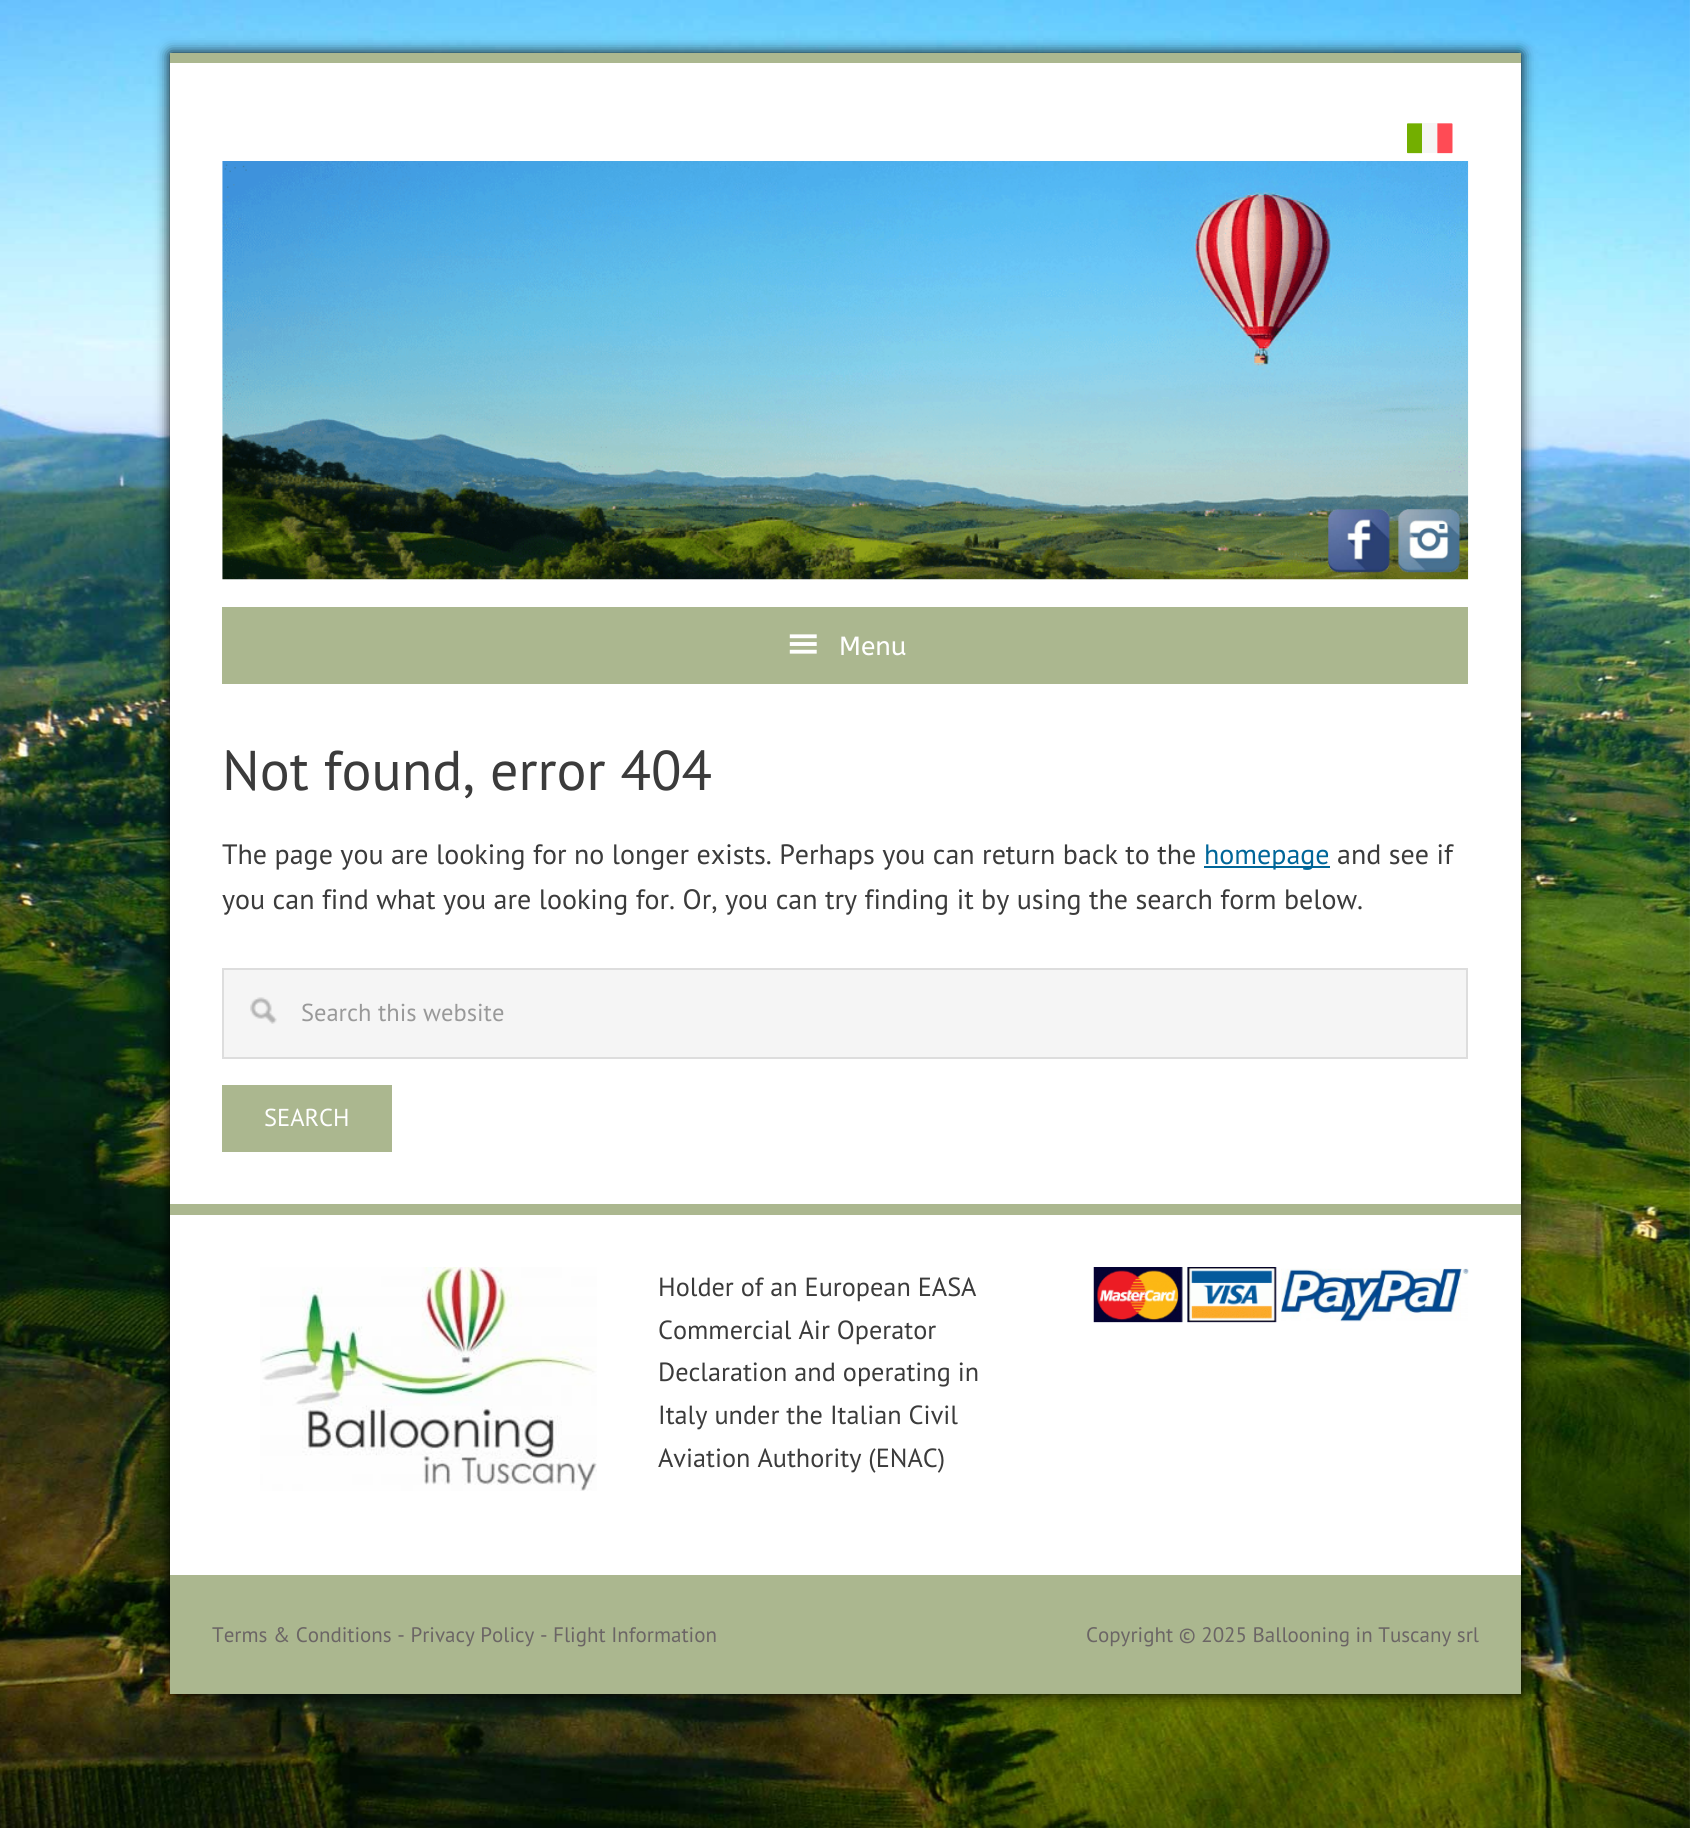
#include <cairo/cairo.h>
#include <math.h>
#include <stddef.h>

typedef struct { double x, y; const char *s; } line_t;
typedef struct { double x, y, w, h; unsigned color; } box_t;
static cairo_t *cr;

static void rgb(unsigned color)
{
	cairo_set_source_rgb(cr, (color >> 16) / 255.0, (color >> 8 & 255) / 255.0, (color & 255) / 255.0);
}

static void rrect(double x, double y, double w, double h, double r)
{
	cairo_new_sub_path(cr);
	cairo_arc(cr, x + w - r, y + h - r, r, 0, M_PI / 2);
	cairo_arc(cr, x + r, y + h - r, r, M_PI / 2, M_PI);
	cairo_arc(cr, x + r, y + r, r, M_PI, 1.5 * M_PI);
	cairo_arc(cr, x + w - r, y + r, r, 1.5 * M_PI, 2 * M_PI);
	cairo_close_path(cr);
}

static void soft_shadow(double x, double y, double w, double h, double r, double blur, double alpha)
{
	cairo_push_group_with_content(cr, CAIRO_CONTENT_ALPHA);
	cairo_set_operator(cr, CAIRO_OPERATOR_SOURCE);
	for (int i = 15; i >= -15 && fmin(w, h) + blur * i / 3 > 0; i -= 2) {
		double e = blur * i / 6;
		cairo_set_source_rgba(cr, 0, 0, 0, alpha * erfc((i - 1) / 8.5) / 2);
		rrect(x - e, y - e, w + 2 * e, h + 2 * e, fmax(0, fmin(r + e + blur * .6, fmin(w, h) / 2 + e)));
		cairo_fill(cr);
	}
	cairo_pattern_t *soft = cairo_pop_group(cr);
	cairo_mask(cr, soft);
	cairo_pattern_destroy(soft);
}

static void image(const char *path, double x, double y, double w, double h)
{
	cairo_surface_t *image = cairo_image_surface_create_from_png(path);
	cairo_save(cr);
	cairo_set_source_surface(cr, image, x, y);
	cairo_rectangle(cr, x, y, w, h);
	cairo_fill(cr);
	cairo_restore(cr);
	cairo_surface_destroy(image);
}

int main(void) {
	cairo_surface_t *surface = cairo_image_surface_create(CAIRO_FORMAT_RGB24, 1690, 1828);
	cr = cairo_create(surface);
	cairo_font_options_t *options = cairo_font_options_create();
	cairo_font_options_set_hint_metrics(options, CAIRO_HINT_METRICS_OFF);
	cairo_font_options_set_hint_style(options, CAIRO_HINT_STYLE_NONE);
	cairo_set_font_options(cr, options);
	cairo_set_miter_limit(cr, 4);
	rgb(0xffffff);
	cairo_paint(cr);
	image("img/1.png", 0, 0, 1690, 1828);
	rgb(0x000000);
	soft_shadow(170, 53, 1351, 1641, 0, 7, 1);
	{
		static const box_t items[] = {
			{170, 63, 1351, 1141, 0xffffff},
			{170, 53, 1351, 10, 0xabb78f},
			{170, 1204, 1351, 11, 0xabb78f},
		};
		for (size_t i = 0; i < sizeof items / sizeof *items; i++) {
			rgb(items[i].color);
			cairo_rectangle(cr, items[i].x, items[i].y, items[i].w, items[i].h);
			cairo_fill(cr);
		}
	}
	image("img/2.png", 1407, 123, 46, 31);
	image("img/3.png", 222, 161, 1247, 419);
	image("img/4.png", 1328, 509, 62, 64);
	image("img/5.png", 1398, 509, 62, 64);
	cairo_rectangle(cr, 222, 607, 1246, 77);
	cairo_fill(cr);
	image("img/6.png", 789, 634, 28, 20);
	rgb(0x006699);
	cairo_rectangle(cr, 1204, 866, 126, 2);
	cairo_fill(cr);
	rgb(0xf5f5f5);
	cairo_rectangle(cr, 224, 970, 1242, 87);
	cairo_fill(cr);
	image("img/7.png", 250, 997, 27, 27);
	cairo_rectangle(cr, 223, 969, 1244, 89);
	rgb(0xdddddd);
	cairo_stroke(cr);
	rgb(0xabb78f);
	cairo_rectangle(cr, 222, 1085, 170, 67);
	cairo_fill(cr);
	rgb(0xffffff);
	cairo_rectangle(cr, 170, 1215, 1351, 360);
	cairo_fill(cr);
	image("img/8.png", 260, 1267, 337, 224);
	image("img/9.png", 1093, 1267, 376, 56);
	rgb(0xabb78f);
	cairo_rectangle(cr, 170, 1575, 1351, 119);
	cairo_fill(cr);
	cairo_select_font_face(cr, "ABeeZee", CAIRO_FONT_SLANT_NORMAL, CAIRO_FONT_WEIGHT_NORMAL);
	cairo_set_font_size(cr, 26.25);
	rgb(0xffffff);
	cairo_move_to(cr, 839, 655);
	cairo_show_text(cr, "Menu");
	cairo_select_font_face(cr, "PT Sans", CAIRO_FONT_SLANT_NORMAL, CAIRO_FONT_WEIGHT_NORMAL);
	cairo_set_font_size(cr, 56);
	rgb(0x3b3b3b);
	cairo_move_to(cr, 222, 790);
	cairo_show_text(cr, "Not found, error 404");
	cairo_set_font_size(cr, 28);
	cairo_move_to(cr, 222, 864);
	cairo_show_text(cr, "The page you are looking for no longer exists. Perhaps you can return back to the");
	rgb(0x006699);
	cairo_move_to(cr, 1204, 864);
	cairo_show_text(cr, "homepage");
	rgb(0x3b3b3b);
	cairo_move_to(cr, 1337, 864);
	cairo_show_text(cr, "and see if");
	cairo_move_to(cr, 222, 909);
	cairo_show_text(cr, "you can find what you are looking for. Or, you can try finding it by using the search form below.");
	cairo_set_font_size(cr, 24.5);
	rgb(0x999999);
	cairo_move_to(cr, 301, 1021);
	cairo_show_text(cr, "Search this website");
	rgb(0xffffff);
	cairo_move_to(cr, 264, 1126);
	cairo_show_text(cr, "SEARCH");
	cairo_set_font_size(cr, 26.25);
	rgb(0x3b3b3b);
	{
		static const line_t items[] = {
			{658, 1296, "Holder of an European EASA"},
			{658, 1339, "Commercial Air Operator"},
			{658, 1381, "Declaration and operating in"},
			{658, 1424, "Italy under the Italian Civil"},
			{658, 1467, "Aviation Authority (ENAC)"},
		};
		for (size_t i = 0; i < sizeof items / sizeof *items; i++) {
			cairo_move_to(cr, items[i].x, items[i].y);
			cairo_show_text(cr, items[i].s);
		}
	}
	cairo_set_font_size(cr, 21);
	rgb(0x6b6565);
	cairo_move_to(cr, 212, 1642);
	cairo_show_text(cr, "Terms & Conditions - Privacy Policy - Flight Information");
	cairo_move_to(cr, 1086, 1642);
	cairo_show_text(cr, "Copyright © 2025 Ballooning in Tuscany srl");
	cairo_surface_write_to_png(surface, "page.png");
	cairo_font_options_destroy(options);
	cairo_destroy(cr);
	cairo_surface_destroy(surface);
	return 0;
}
